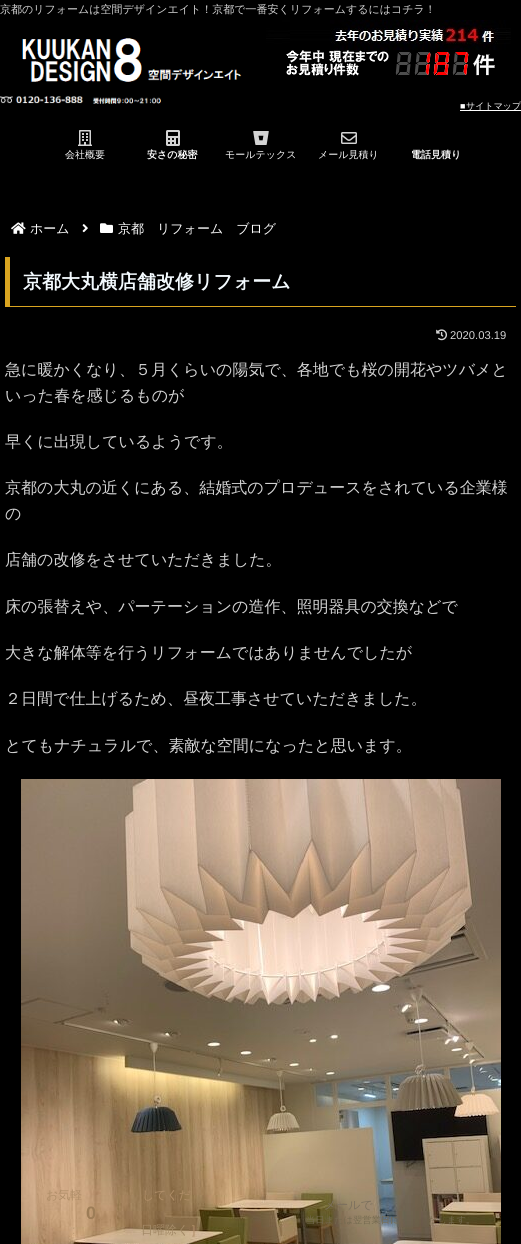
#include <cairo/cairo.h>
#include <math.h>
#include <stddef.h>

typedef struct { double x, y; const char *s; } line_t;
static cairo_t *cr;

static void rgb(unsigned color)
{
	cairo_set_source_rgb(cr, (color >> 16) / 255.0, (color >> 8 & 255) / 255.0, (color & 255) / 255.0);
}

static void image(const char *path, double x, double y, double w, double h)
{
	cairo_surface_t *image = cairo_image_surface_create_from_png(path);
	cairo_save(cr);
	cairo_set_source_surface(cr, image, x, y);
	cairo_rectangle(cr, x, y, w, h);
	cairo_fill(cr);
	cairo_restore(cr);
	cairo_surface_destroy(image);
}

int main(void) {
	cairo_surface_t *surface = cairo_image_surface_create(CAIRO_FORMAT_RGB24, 521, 1244);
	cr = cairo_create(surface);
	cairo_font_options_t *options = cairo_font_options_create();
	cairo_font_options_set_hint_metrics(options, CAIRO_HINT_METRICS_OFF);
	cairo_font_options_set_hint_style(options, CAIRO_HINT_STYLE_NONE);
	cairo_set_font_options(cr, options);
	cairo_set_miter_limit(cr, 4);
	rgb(0x000000);
	cairo_paint(cr);
	image("img/1.png", 22, 38, 220, 44);
	image("img/2.png", 0, 96, 161, 8);
	image("img/3.png", 266, 20, 245, 56);
	rgb(0xffffff);
	cairo_rectangle(cr, 460, 110, 61, 1);
	cairo_fill(cr);
	image("img/4.png", 78, 130, 14, 16);
	image("img/5.png", 166, 130, 14, 16);
	image("img/6.png", 253, 131, 16, 14);
	image("img/7.png", 341, 132, 16, 12);
	image("img/8.png", 11, 222, 15, 12);
	image("img/9.png", 82, 224, 6, 9);
	image("img/10.png", 100, 223, 13, 10);
	rgb(0xdaa520);
	cairo_rectangle(cr, 5, 306, 511, 1);
	cairo_fill(cr);
	cairo_rectangle(cr, 5, 257, 5, 50);
	cairo_fill(cr);
	image("img/11.png", 436, 329, 11, 12);
	image("img/12.png", 21, 779, 480, 465);
	cairo_select_font_face(cr, "WenQuanYi Zen Hei Medium", CAIRO_FONT_SLANT_NORMAL, CAIRO_FONT_WEIGHT_NORMAL);
	cairo_set_font_size(cr, 11);
	rgb(0xd3d3d3);
	cairo_move_to(cr, 0, 13);
	cairo_show_text(cr, "京都のリフォームは空間デザインエイト！京都で一番安くリフォームするにはコチラ！");
	cairo_select_font_face(cr, "Liberation Sans", CAIRO_FONT_SLANT_NORMAL, CAIRO_FONT_WEIGHT_NORMAL);
	cairo_set_font_size(cr, 9);
	rgb(0xffffff);
	cairo_move_to(cr, 460, 109);
	cairo_show_text(cr, "■");
	cairo_select_font_face(cr, "WenQuanYi Zen Hei Medium", CAIRO_FONT_SLANT_NORMAL, CAIRO_FONT_WEIGHT_NORMAL);
	cairo_move_to(cr, 466, 109);
	cairo_show_text(cr, "サイトマップ");
	cairo_set_font_size(cr, 10);
	cairo_move_to(cr, 65, 158);
	cairo_show_text(cr, "会社概要");
	cairo_select_font_face(cr, "WenQuanYi Zen Hei", CAIRO_FONT_SLANT_NORMAL, CAIRO_FONT_WEIGHT_BOLD);
	cairo_move_to(cr, 147, 158);
	cairo_show_text(cr, "安さの秘密");
	cairo_select_font_face(cr, "WenQuanYi Zen Hei Medium", CAIRO_FONT_SLANT_NORMAL, CAIRO_FONT_WEIGHT_NORMAL);
	cairo_move_to(cr, 225, 158);
	cairo_show_text(cr, "モールテックス");
	cairo_move_to(cr, 318, 158);
	cairo_show_text(cr, "メール見積り");
	cairo_select_font_face(cr, "WenQuanYi Zen Hei", CAIRO_FONT_SLANT_NORMAL, CAIRO_FONT_WEIGHT_BOLD);
	cairo_move_to(cr, 411, 158);
	cairo_show_text(cr, "電話見積り");
	cairo_select_font_face(cr, "WenQuanYi Zen Hei Medium", CAIRO_FONT_SLANT_NORMAL, CAIRO_FONT_WEIGHT_NORMAL);
	cairo_set_font_size(cr, 13);
	cairo_move_to(cr, 30, 233);
	cairo_show_text(cr, "ホーム");
	cairo_move_to(cr, 118, 233);
	cairo_show_text(cr, "京都　リフォーム　ブログ");
	cairo_select_font_face(cr, "WenQuanYi Zen Hei", CAIRO_FONT_SLANT_NORMAL, CAIRO_FONT_WEIGHT_BOLD);
	cairo_set_font_size(cr, 19);
	rgb(0xf3fafe);
	cairo_move_to(cr, 23, 288);
	cairo_show_text(cr, "京都大丸横店舗改修リフォーム");
	cairo_select_font_face(cr, "Liberation Sans", CAIRO_FONT_SLANT_NORMAL, CAIRO_FONT_WEIGHT_NORMAL);
	cairo_set_font_size(cr, 11.25);
	rgb(0xd3d3d3);
	cairo_move_to(cr, 450, 339);
	cairo_show_text(cr, "2020.03.19");
	cairo_select_font_face(cr, "WenQuanYi Zen Hei Medium", CAIRO_FONT_SLANT_NORMAL, CAIRO_FONT_WEIGHT_NORMAL);
	cairo_set_font_size(cr, 16);
	{
		static const line_t items[] = {
			{5, 375, "急に暖かくなり、５月くらいの陽気で、各地でも桜の開花やツバメと"},
			{5, 401, "いった春を感じるものが"},
			{5, 447, "早くに出現しているようです。"},
			{5, 493, "京都の大丸の近くにある、結婚式のプロデュースをされている企業様"},
			{5, 519, "の"},
			{5, 565, "店舗の改修をさせていただきました。"},
			{5, 612, "床の張替えや、パーテーションの造作、照明器具の交換などで"},
			{5, 658, "大きな解体等を行うリフォームではありませんでしたが"},
			{5, 704, "２日間で仕上げるため、昼夜工事させていただきました。"},
			{5, 751, "とてもナチュラルで、素敵な空間になったと思います。"},
		};
		for (size_t i = 0; i < sizeof items / sizeof *items; i++) {
			cairo_move_to(cr, items[i].x, items[i].y);
			cairo_show_text(cr, items[i].s);
		}
	}
	cairo_set_font_size(cr, 12);
	rgb(0xb08e68);
	cairo_move_to(cr, 46, 1199);
	cairo_show_text(cr, "お気軽");
	cairo_move_to(cr, 142, 1199);
	cairo_show_text(cr, "してくだ");
	cairo_select_font_face(cr, "Liberation Sans", CAIRO_FONT_SLANT_NORMAL, CAIRO_FONT_WEIGHT_BOLD);
	cairo_set_font_size(cr, 18);
	rgb(0x9d7d57);
	cairo_move_to(cr, 86, 1219);
	cairo_show_text(cr, "0");
	cairo_select_font_face(cr, "Liberation Sans", CAIRO_FONT_SLANT_NORMAL, CAIRO_FONT_WEIGHT_NORMAL);
	cairo_set_font_size(cr, 12);
	rgb(0xbe9c75);
	cairo_move_to(cr, 72, 1234);
	cairo_show_text(cr, ":");
	cairo_select_font_face(cr, "WenQuanYi Zen Hei Medium", CAIRO_FONT_SLANT_NORMAL, CAIRO_FONT_WEIGHT_NORMAL);
	rgb(0xa48a67);
	cairo_move_to(cr, 141, 1234);
	cairo_show_text(cr, "日曜除く");
	cairo_select_font_face(cr, "Liberation Sans", CAIRO_FONT_SLANT_NORMAL, CAIRO_FONT_WEIGHT_NORMAL);
	rgb(0xb08e68);
	cairo_move_to(cr, 192, 1234);
	cairo_show_text(cr, "]");
	cairo_select_font_face(cr, "WenQuanYi Zen Hei Medium", CAIRO_FONT_SLANT_NORMAL, CAIRO_FONT_WEIGHT_NORMAL);
	rgb(0x7d715e);
	cairo_move_to(cr, 324, 1209);
	cairo_show_text(cr, "メールで");
	cairo_set_font_size(cr, 9.25);
	rgb(0x74694f);
	cairo_move_to(cr, 306, 1223);
	cairo_show_text(cr, "当日または翌営業日に");
	cairo_move_to(cr, 428, 1223);
	cairo_show_text(cr, "たします。");
	cairo_surface_write_to_png(surface, "page.png");
	cairo_font_options_destroy(options);
	cairo_destroy(cr);
	cairo_surface_destroy(surface);
	return 0;
}
